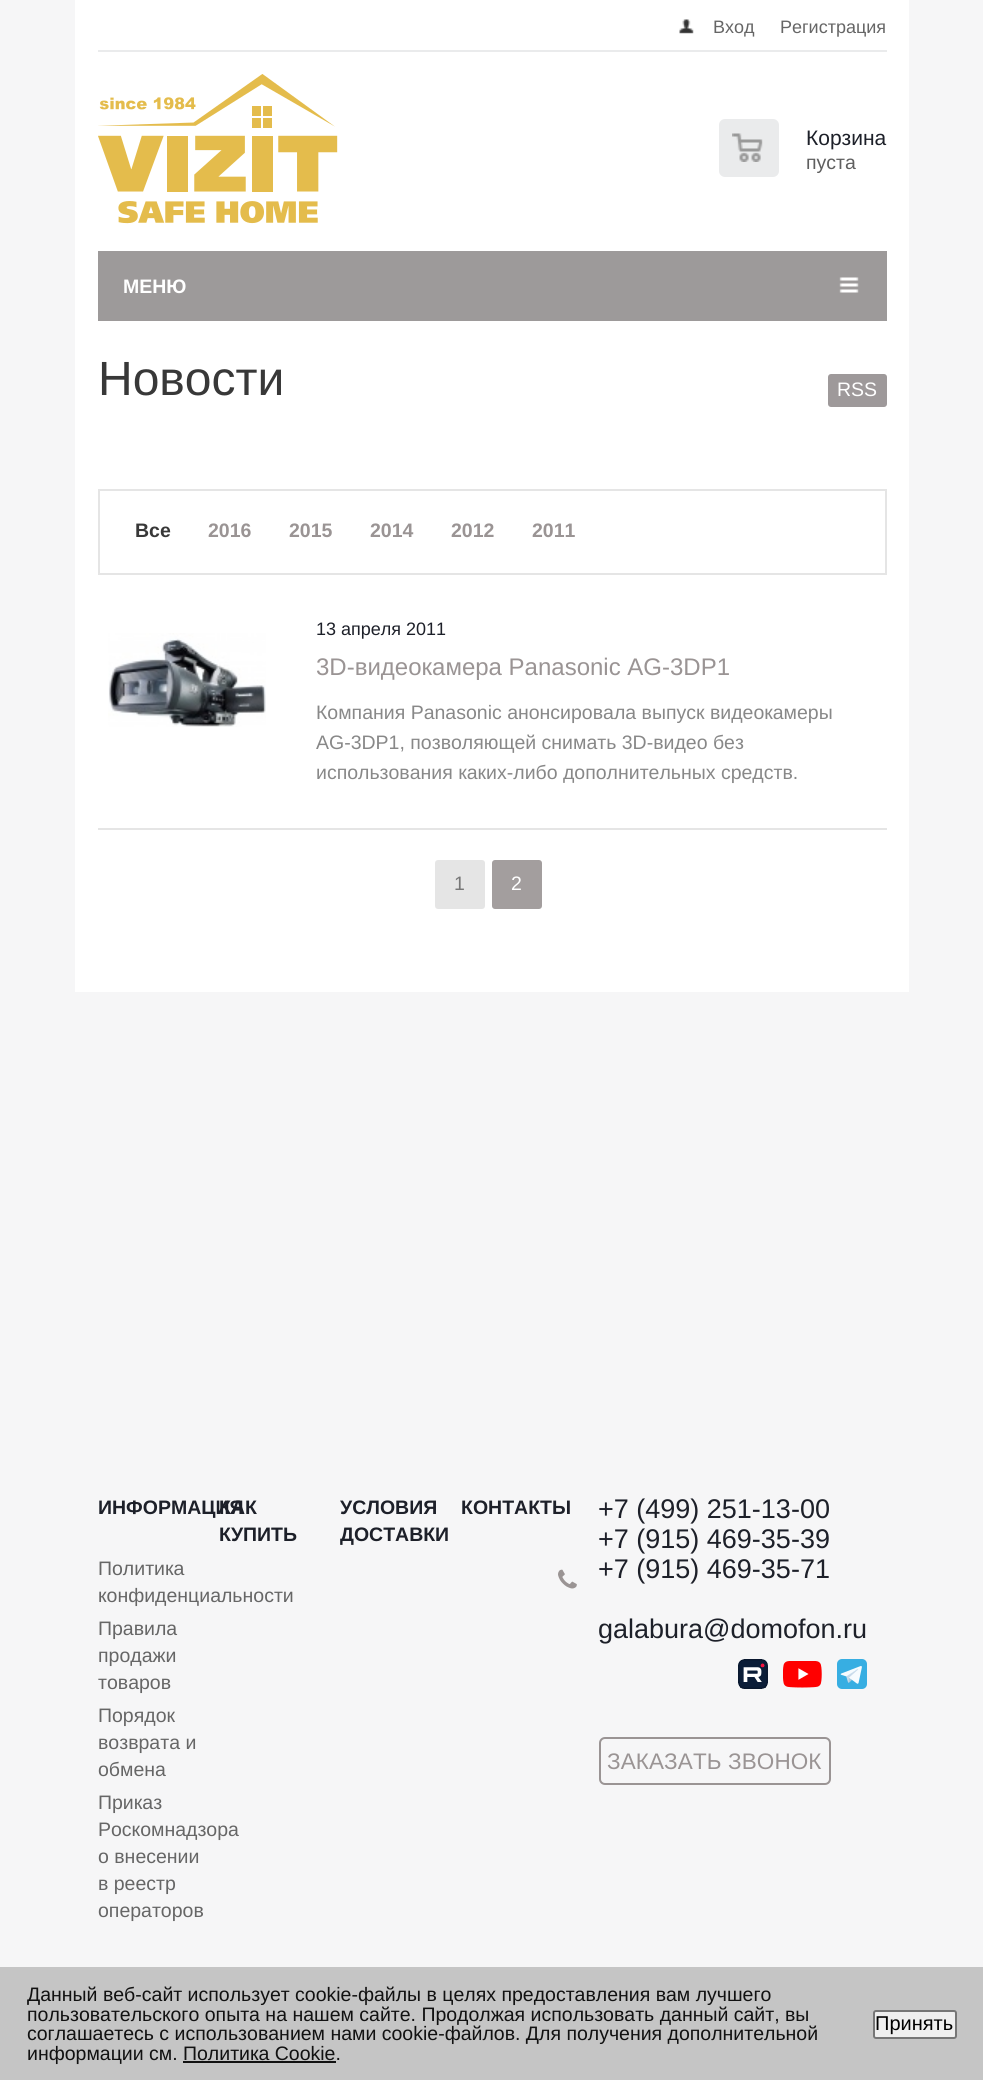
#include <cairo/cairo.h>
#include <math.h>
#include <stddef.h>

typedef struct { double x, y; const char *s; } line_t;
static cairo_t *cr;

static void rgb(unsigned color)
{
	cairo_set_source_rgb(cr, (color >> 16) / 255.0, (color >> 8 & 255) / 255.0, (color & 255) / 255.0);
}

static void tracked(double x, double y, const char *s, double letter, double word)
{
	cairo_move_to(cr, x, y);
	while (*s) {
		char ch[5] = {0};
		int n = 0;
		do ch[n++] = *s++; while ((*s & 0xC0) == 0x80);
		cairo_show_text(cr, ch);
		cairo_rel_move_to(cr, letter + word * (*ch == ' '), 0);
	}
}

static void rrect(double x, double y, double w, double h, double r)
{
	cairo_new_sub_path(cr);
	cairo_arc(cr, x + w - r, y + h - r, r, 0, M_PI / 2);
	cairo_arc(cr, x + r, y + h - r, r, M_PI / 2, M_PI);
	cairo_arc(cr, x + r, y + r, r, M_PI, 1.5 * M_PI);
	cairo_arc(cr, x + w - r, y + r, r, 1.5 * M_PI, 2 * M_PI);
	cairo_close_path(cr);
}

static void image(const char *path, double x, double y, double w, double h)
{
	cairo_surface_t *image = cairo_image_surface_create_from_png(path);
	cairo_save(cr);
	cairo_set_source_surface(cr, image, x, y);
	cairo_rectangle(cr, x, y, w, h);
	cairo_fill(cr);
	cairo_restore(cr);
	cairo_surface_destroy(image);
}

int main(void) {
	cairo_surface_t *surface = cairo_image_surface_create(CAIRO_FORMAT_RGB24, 983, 2080);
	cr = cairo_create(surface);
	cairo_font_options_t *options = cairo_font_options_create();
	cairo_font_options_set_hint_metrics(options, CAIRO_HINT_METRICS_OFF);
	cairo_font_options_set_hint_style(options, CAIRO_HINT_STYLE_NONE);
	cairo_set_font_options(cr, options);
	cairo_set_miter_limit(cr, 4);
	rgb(0xf6f6f7);
	cairo_paint(cr);
	rgb(0xffffff);
	cairo_rectangle(cr, 75, 0, 834, 251);
	cairo_fill(cr);
	image("img/1.png", 679, 19, 15, 15);
	rgb(0xeaebec);
	cairo_rectangle(cr, 98, 50, 789, 2);
	cairo_fill(cr);
	image("img/2.png", 98, 74, 240, 150);
	rrect(719, 119, 60, 58, 6);
	cairo_fill(cr);
	image("img/3.png", 732, 133, 31, 29);
	rgb(0xffffff);
	cairo_rectangle(cr, 75, 251, 834, 741);
	cairo_fill(cr);
	rgb(0x9d9a9a);
	cairo_rectangle(cr, 98, 251, 789, 70);
	cairo_fill(cr);
	image("img/4.png", 839, 277, 20, 16);
	rgb(0x9e999a);
	rrect(828, 374, 59, 33, 3);
	cairo_fill(cr);
	cairo_rectangle(cr, 99, 490, 787, 84);
	rgb(0xe5e5e5);
	cairo_stroke(cr);
	cairo_rectangle(cr, 98, 828, 789, 2);
	cairo_fill(cr);
	image("img/5.png", 108, 633, 158, 94);
	rrect(435, 860, 50, 49, 3);
	cairo_fill(cr);
	rgb(0xa39e9e);
	rrect(492, 860, 50, 49, 3);
	cairo_fill(cr);
	image("img/6.png", 558, 1569, 19, 20);
	image("img/7.png", 738, 1659, 30, 30);
	image("img/8.png", 783, 1661, 39, 27);
	image("img/9.png", 837, 1659, 30, 30);
	rrect(600, 1738, 230, 46, 5);
	rgb(0x9a9494);
	cairo_stroke(cr);
	rgb(0xc5c5c5);
	cairo_rectangle(cr, 0, 1967, 983, 113);
	cairo_fill(cr);
	rgb(0x111111);
	cairo_rectangle(cr, 183, 2061, 153, 2);
	cairo_fill(cr);
	rgb(0xefefef);
	rrect(874, 2011, 82, 27, 2);
	cairo_fill_preserve(cr);
	rgb(0x767676);
	cairo_stroke(cr);
	cairo_select_font_face(cr, "Liberation Sans", CAIRO_FONT_SLANT_NORMAL, CAIRO_FONT_WEIGHT_NORMAL);
	cairo_set_font_size(cr, 18);
	rgb(0x666666);
	cairo_move_to(cr, 713, 33);
	cairo_show_text(cr, "Вход");
	cairo_move_to(cr, 780, 33);
	cairo_show_text(cr, "Регистрация");
	cairo_set_font_size(cr, 21);
	rgb(0x1d2029);
	cairo_move_to(cr, 806, 145);
	cairo_show_text(cr, "Корзина");
	cairo_set_font_size(cr, 19.5);
	rgb(0x5f5f5f);
	cairo_move_to(cr, 806, 169);
	cairo_show_text(cr, "пуста");
	cairo_select_font_face(cr, "Liberation Sans", CAIRO_FONT_SLANT_NORMAL, CAIRO_FONT_WEIGHT_BOLD);
	rgb(0xffffff);
	cairo_move_to(cr, 123, 293);
	cairo_show_text(cr, "МЕНЮ");
	cairo_select_font_face(cr, "Liberation Sans", CAIRO_FONT_SLANT_NORMAL, CAIRO_FONT_WEIGHT_NORMAL);
	cairo_set_font_size(cr, 48);
	rgb(0x383838);
	cairo_move_to(cr, 98, 395);
	cairo_show_text(cr, "Новости");
	cairo_set_font_size(cr, 19.5);
	rgb(0xffffff);
	cairo_move_to(cr, 837, 396);
	cairo_show_text(cr, "RSS");
	cairo_select_font_face(cr, "Liberation Sans", CAIRO_FONT_SLANT_NORMAL, CAIRO_FONT_WEIGHT_BOLD);
	rgb(0x383838);
	cairo_move_to(cr, 135, 537);
	cairo_show_text(cr, "Все");
	rgb(0x9a9494);
	{
		static const line_t items[] = {
			{208, 537, "2016"},
			{289, 537, "2015"},
			{370, 537, "2014"},
			{451, 537, "2012"},
			{532, 537, "2011"},
		};
		for (size_t i = 0; i < sizeof items / sizeof *items; i++) {
			cairo_move_to(cr, items[i].x, items[i].y);
			cairo_show_text(cr, items[i].s);
		}
	}
	cairo_select_font_face(cr, "Liberation Sans", CAIRO_FONT_SLANT_NORMAL, CAIRO_FONT_WEIGHT_NORMAL);
	cairo_set_font_size(cr, 18);
	rgb(0x1d2029);
	cairo_move_to(cr, 316, 635);
	cairo_show_text(cr, "13 апреля 2011");
	cairo_set_font_size(cr, 24);
	rgb(0x9a9494);
	cairo_move_to(cr, 316, 675);
	cairo_show_text(cr, "3D-видеокамера Panasonic AG-3DP1");
	cairo_set_font_size(cr, 19.5);
	rgb(0x888888);
	{
		static const line_t items[] = {
			{316, 719, "Компания Panasonic анонсировала выпуск видеокамеры"},
			{316, 749, "AG-3DP1, позволяющей снимать 3D-видео без"},
			{316, 779, "использования каких-либо дополнительных средств."},
		};
		for (size_t i = 0; i < sizeof items / sizeof *items; i++) {
			cairo_move_to(cr, items[i].x, items[i].y);
			cairo_show_text(cr, items[i].s);
		}
	}
	rgb(0x777777);
	cairo_move_to(cr, 454, 890);
	cairo_show_text(cr, "1");
	rgb(0xffffff);
	cairo_move_to(cr, 511, 890);
	cairo_show_text(cr, "2");
	cairo_select_font_face(cr, "Liberation Sans", CAIRO_FONT_SLANT_NORMAL, CAIRO_FONT_WEIGHT_BOLD);
	rgb(0x1d2029);
	{
		static const line_t items[] = {
			{98, 1514, "ИНФОРМАЦИЯ"},
			{219, 1514, "КАК"},
			{219, 1541, "КУПИТЬ"},
			{340, 1514, "УСЛОВИЯ"},
			{340, 1541, "ДОСТАВКИ"},
			{461, 1514, "КОНТАКТЫ"},
		};
		for (size_t i = 0; i < sizeof items / sizeof *items; i++) {
			cairo_move_to(cr, items[i].x, items[i].y);
			cairo_show_text(cr, items[i].s);
		}
	}
	cairo_select_font_face(cr, "Liberation Sans", CAIRO_FONT_SLANT_NORMAL, CAIRO_FONT_WEIGHT_NORMAL);
	rgb(0x666666);
	{
		static const line_t items[] = {
			{98, 1575, "Политика"},
			{98, 1602, "конфиденциальности"},
			{98, 1635, "Правила"},
			{98, 1662, "продажи"},
			{98, 1689, "товаров"},
			{98, 1722, "Порядок"},
			{98, 1749, "возврата и"},
			{98, 1776, "обмена"},
			{98, 1809, "Приказ"},
			{98, 1836, "Роскомнадзора"},
			{98, 1863, "о внесении"},
			{98, 1890, "в реестр"},
			{98, 1917, "операторов"},
		};
		for (size_t i = 0; i < sizeof items / sizeof *items; i++) {
			cairo_move_to(cr, items[i].x, items[i].y);
			cairo_show_text(cr, items[i].s);
		}
	}
	cairo_set_font_size(cr, 27);
	rgb(0x1d2029);
	{
		static const line_t items[] = {
			{598, 1518, "+7 (499) 251-13-00"},
			{598, 1548, "+7 (915) 469-35-39"},
			{598, 1578, "+7 (915) 469-35-71"},
			{598, 1638, "galabura@domofon.ru"},
		};
		for (size_t i = 0; i < sizeof items / sizeof *items; i++) {
			cairo_move_to(cr, items[i].x, items[i].y);
			cairo_show_text(cr, items[i].s);
		}
	}
	cairo_set_font_size(cr, 22.5);
	rgb(0x9a9494);
	tracked(607, 1769, "ЗАКАЗАТЬ ЗВОНОК", 0.1, 0);
	cairo_set_font_size(cr, 19.5);
	rgb(0x111111);
	{
		static const line_t items[] = {
			{27, 2001, "Данный веб-сайт использует cookie-файлы в целях предоставления вам лучшего"},
			{27, 2021, "пользовательского опыта на нашем сайте. Продолжая использовать данный сайт, вы"},
			{27, 2040, "соглашаетесь с использованием нами cookie-файлов. Для получения дополнительной"},
			{27, 2060, "информации см. Политика Cookie."},
		};
		for (size_t i = 0; i < sizeof items / sizeof *items; i++) {
			cairo_move_to(cr, items[i].x, items[i].y);
			cairo_show_text(cr, items[i].s);
		}
	}
	cairo_set_font_size(cr, 20);
	rgb(0x000000);
	cairo_move_to(cr, 875, 2030);
	cairo_show_text(cr, "Принять");
	cairo_surface_write_to_png(surface, "page.png");
	cairo_font_options_destroy(options);
	cairo_destroy(cr);
	cairo_surface_destroy(surface);
	return 0;
}
